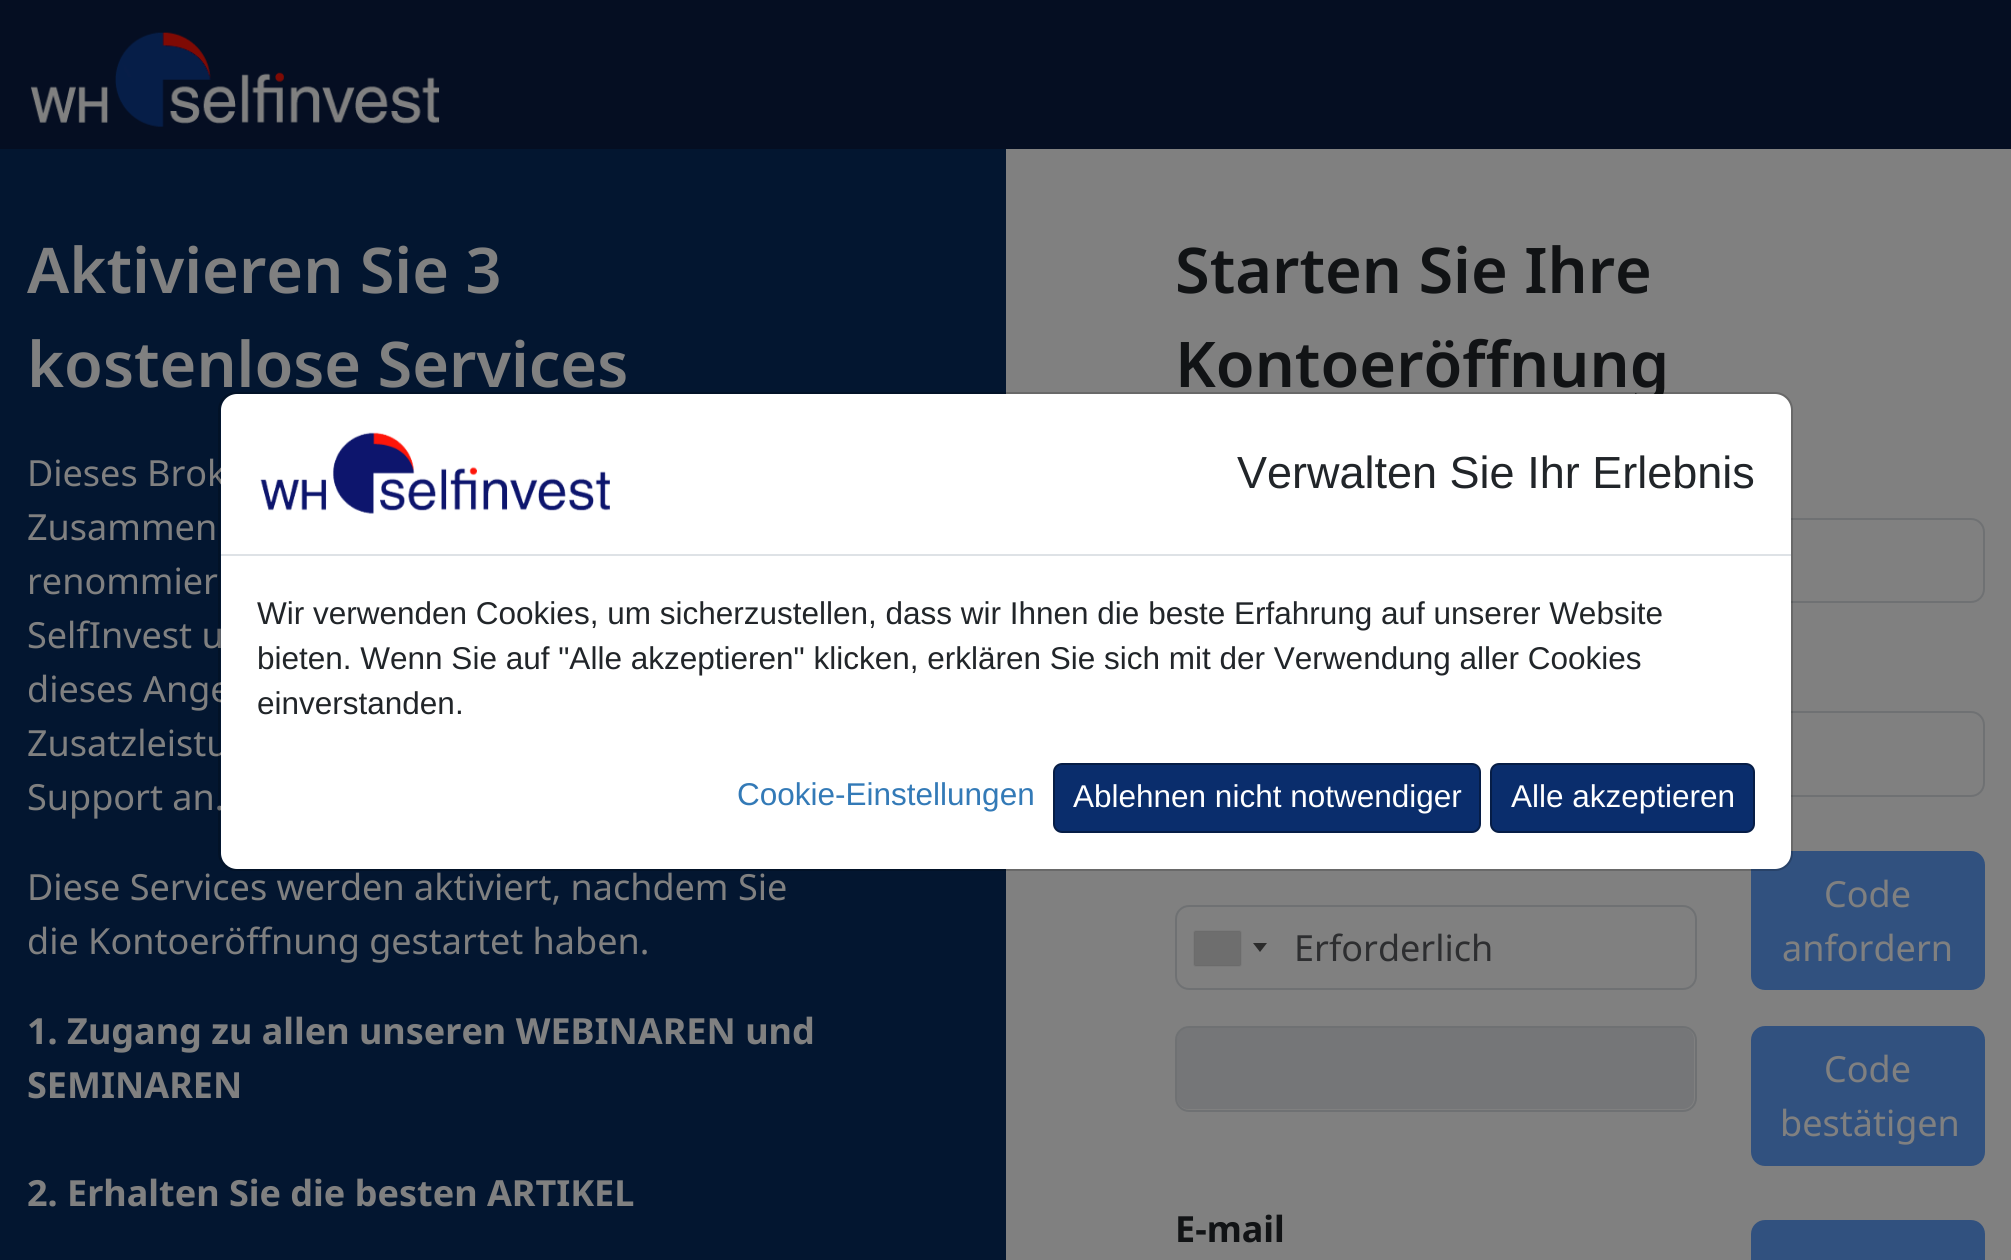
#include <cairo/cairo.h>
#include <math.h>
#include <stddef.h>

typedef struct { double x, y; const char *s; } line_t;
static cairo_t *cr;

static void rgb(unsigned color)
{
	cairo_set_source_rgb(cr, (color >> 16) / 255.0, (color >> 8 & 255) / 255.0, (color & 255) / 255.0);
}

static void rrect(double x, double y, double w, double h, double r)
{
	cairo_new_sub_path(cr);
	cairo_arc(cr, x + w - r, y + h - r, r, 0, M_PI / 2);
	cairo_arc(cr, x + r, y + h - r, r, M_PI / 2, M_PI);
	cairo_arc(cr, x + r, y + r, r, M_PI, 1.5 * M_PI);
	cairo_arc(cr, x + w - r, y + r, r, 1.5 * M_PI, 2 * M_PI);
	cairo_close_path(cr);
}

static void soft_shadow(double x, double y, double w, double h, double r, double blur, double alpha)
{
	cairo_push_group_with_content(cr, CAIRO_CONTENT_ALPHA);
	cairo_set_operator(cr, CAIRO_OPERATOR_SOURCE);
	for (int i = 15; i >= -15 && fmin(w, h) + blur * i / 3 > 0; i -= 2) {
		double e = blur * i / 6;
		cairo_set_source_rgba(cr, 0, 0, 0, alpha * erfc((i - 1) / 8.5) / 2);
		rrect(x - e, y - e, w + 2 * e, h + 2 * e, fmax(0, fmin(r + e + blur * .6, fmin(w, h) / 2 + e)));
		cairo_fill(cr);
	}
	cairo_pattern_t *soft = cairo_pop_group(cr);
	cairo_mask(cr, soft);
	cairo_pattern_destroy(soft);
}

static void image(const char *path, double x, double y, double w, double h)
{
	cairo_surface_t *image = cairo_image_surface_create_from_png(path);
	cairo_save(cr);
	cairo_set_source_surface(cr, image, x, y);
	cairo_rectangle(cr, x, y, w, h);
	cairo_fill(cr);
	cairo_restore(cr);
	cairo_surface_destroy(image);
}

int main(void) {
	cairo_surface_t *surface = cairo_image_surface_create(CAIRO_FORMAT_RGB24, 2011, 1260);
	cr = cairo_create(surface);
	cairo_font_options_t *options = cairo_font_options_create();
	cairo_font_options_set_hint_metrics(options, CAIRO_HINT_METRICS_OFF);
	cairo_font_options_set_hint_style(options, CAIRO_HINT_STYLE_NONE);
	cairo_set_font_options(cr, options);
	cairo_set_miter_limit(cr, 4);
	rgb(0x808080);
	cairo_paint(cr);
	rgb(0x031630);
	cairo_rectangle(cr, 0, 149, 1006, 1111);
	cairo_fill(cr);
	rgb(0x050e22);
	cairo_rectangle(cr, 0, 0, 2011, 149);
	cairo_fill(cr);
	image("img/1.png", 30, 32, 410, 95);
	rrect(1176, 519, 808, 83, 13);
	rgb(0x6f7173);
	cairo_stroke(cr);
	rrect(1176, 712, 808, 84, 13);
	cairo_stroke(cr);
	rrect(1176, 906, 520, 83, 13);
	cairo_stroke(cr);
	rgb(0x444444);
	soft_shadow(1195, 932, 45, 33, 0, 1, 1);
	rgb(0x6e6e6e);
	cairo_rectangle(cr, 1195, 932, 45, 33);
	cairo_fill(cr);
	rgb(0x2b2b2b);
	cairo_new_path(cr);
	cairo_move_to(cr, 1253, 943);
	cairo_line_to(cr, 1267, 943);
	cairo_line_to(cr, 1260, 952);
	cairo_close_path(cr);
	cairo_fill(cr);
	rgb(0x31517f);
	rrect(1752, 852, 232, 137, 13);
	cairo_fill_preserve(cr);
	cairo_stroke(cr);
	rgb(0x757678);
	rrect(1177, 1028, 517, 81, 11);
	cairo_fill(cr);
	rrect(1176, 1027, 520, 84, 13);
	rgb(0x6f7173);
	cairo_stroke(cr);
	rgb(0x31517f);
	rrect(1752, 1027, 232, 138, 13);
	cairo_fill_preserve(cr);
	cairo_stroke(cr);
	rrect(1752, 1221, 232, 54, 13);
	cairo_fill_preserve(cr);
	cairo_stroke(cr);
	cairo_select_font_face(cr, "Noto Sans SemiBold", CAIRO_FONT_SLANT_NORMAL, CAIRO_FONT_WEIGHT_NORMAL);
	cairo_set_font_size(cr, 63);
	rgb(0x808080);
	cairo_move_to(cr, 27, 293);
	cairo_show_text(cr, "Aktivieren Sie 3");
	cairo_move_to(cr, 27, 387);
	cairo_show_text(cr, "kostenlose Services");
	cairo_select_font_face(cr, "Noto Sans", CAIRO_FONT_SLANT_NORMAL, CAIRO_FONT_WEIGHT_NORMAL);
	cairo_set_font_size(cr, 36);
	{
		static const line_t items[] = {
			{27, 486, "Dieses Brok"},
			{27, 540, "Zusammen"},
			{27, 594, "renommier"},
			{27, 648, "SelfInvest u"},
			{27, 702, "dieses Ange"},
			{27, 756, "Zusatzleistu"},
			{27, 810, "Support an."},
			{27, 900, "Diese Services werden aktiviert, nachdem Sie"},
			{27, 954, "die Kontoeröffnung gestartet haben."},
		};
		for (size_t i = 0; i < sizeof items / sizeof *items; i++) {
			cairo_move_to(cr, items[i].x, items[i].y);
			cairo_show_text(cr, items[i].s);
		}
	}
	cairo_select_font_face(cr, "Noto Sans", CAIRO_FONT_SLANT_NORMAL, CAIRO_FONT_WEIGHT_BOLD);
	{
		static const line_t items[] = {
			{27, 1044, "1. Zugang zu allen unseren WEBINAREN und"},
			{27, 1098, "SEMINAREN"},
			{27, 1206, "2. Erhalten Sie die besten ARTIKEL"},
		};
		for (size_t i = 0; i < sizeof items / sizeof *items; i++) {
			cairo_move_to(cr, items[i].x, items[i].y);
			cairo_show_text(cr, items[i].s);
		}
	}
	cairo_select_font_face(cr, "Noto Sans SemiBold", CAIRO_FONT_SLANT_NORMAL, CAIRO_FONT_WEIGHT_NORMAL);
	cairo_set_font_size(cr, 63);
	rgb(0x111315);
	cairo_move_to(cr, 1175, 293);
	cairo_show_text(cr, "Starten Sie Ihre");
	cairo_move_to(cr, 1175, 387);
	cairo_show_text(cr, "Kontoeröffnung");
	cairo_select_font_face(cr, "Noto Sans", CAIRO_FONT_SLANT_NORMAL, CAIRO_FONT_WEIGHT_NORMAL);
	cairo_set_font_size(cr, 36);
	rgb(0x2d2e30);
	cairo_move_to(cr, 1294, 961);
	cairo_show_text(cr, "Erforderlich");
	rgb(0x808080);
	{
		static const line_t items[] = {
			{1824, 907, "Code"},
			{1782, 961, "anfordern"},
			{1824, 1082, "Code"},
			{1780, 1136, "bestätigen"},
		};
		for (size_t i = 0; i < sizeof items / sizeof *items; i++) {
			cairo_move_to(cr, items[i].x, items[i].y);
			cairo_show_text(cr, items[i].s);
		}
	}
	cairo_select_font_face(cr, "Noto Sans", CAIRO_FONT_SLANT_NORMAL, CAIRO_FONT_WEIGHT_BOLD);
	rgb(0x111315);
	cairo_move_to(cr, 1175, 1242);
	cairo_show_text(cr, "E-mail");
	rgb(0xffffff);
	rrect(221, 394, 1570, 475, 16);
	cairo_fill(cr);
	rrect(219, 393, 1573, 477, 17);
	cairo_set_source_rgba(cr, 0, 0, 0, 0.18);
	cairo_stroke(cr);
	rgb(0xdee2e6);
	cairo_rectangle(cr, 221, 554, 1570, 2);
	cairo_fill(cr);
	image("img/2.png", 260, 432, 350, 82);
	cairo_select_font_face(cr, "Liberation Sans", CAIRO_FONT_SLANT_NORMAL, CAIRO_FONT_WEIGHT_NORMAL);
	cairo_set_font_size(cr, 45);
	rgb(0x212529);
	cairo_move_to(cr, 1237, 488);
	cairo_show_text(cr, "Verwalten Sie Ihr Erlebnis");
	cairo_set_font_size(cr, 31.5);
	{
		static const line_t items[] = {
			{257, 624, "Wir verwenden Cookies, um sicherzustellen, dass wir Ihnen die beste Erfahrung auf unserer Website"},
			{257, 669, "bieten. Wenn Sie auf \"Alle akzeptieren\" klicken, erklären Sie sich mit der Verwendung aller Cookies"},
			{257, 714, "einverstanden."},
		};
		for (size_t i = 0; i < sizeof items / sizeof *items; i++) {
			cairo_move_to(cr, items[i].x, items[i].y);
			cairo_show_text(cr, items[i].s);
		}
	}
	rgb(0x337ab7);
	cairo_move_to(cr, 737, 805);
	cairo_show_text(cr, "Cookie-Einstellungen");
	rgb(0x0a2d6c);
	rrect(1054, 764, 426, 68, 8);
	cairo_fill_preserve(cr);
	rgb(0x061d46);
	cairo_stroke(cr);
	rgb(0xffffff);
	cairo_move_to(cr, 1073, 807);
	cairo_show_text(cr, "Ablehnen nicht notwendiger");
	rgb(0x0a2d6c);
	rrect(1491, 764, 263, 68, 8);
	cairo_fill_preserve(cr);
	rgb(0x061d46);
	cairo_stroke(cr);
	rgb(0xffffff);
	cairo_move_to(cr, 1511, 807);
	cairo_show_text(cr, "Alle akzeptieren");
	cairo_surface_write_to_png(surface, "page.png");
	cairo_font_options_destroy(options);
	cairo_destroy(cr);
	cairo_surface_destroy(surface);
	return 0;
}
